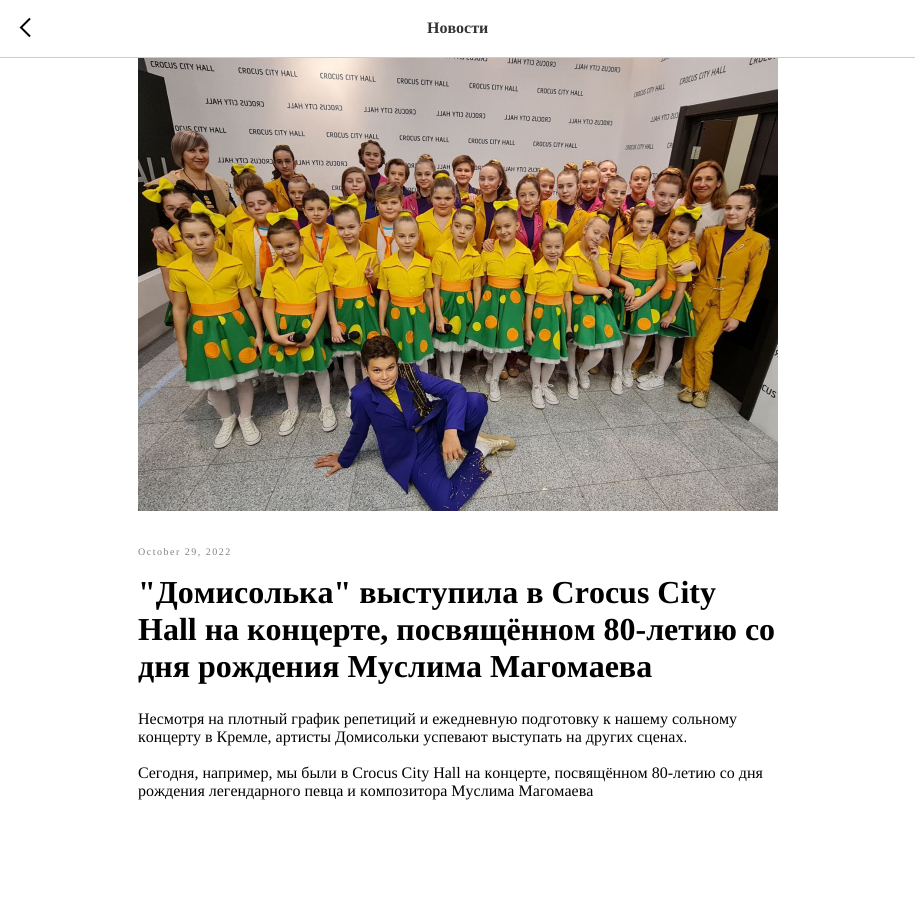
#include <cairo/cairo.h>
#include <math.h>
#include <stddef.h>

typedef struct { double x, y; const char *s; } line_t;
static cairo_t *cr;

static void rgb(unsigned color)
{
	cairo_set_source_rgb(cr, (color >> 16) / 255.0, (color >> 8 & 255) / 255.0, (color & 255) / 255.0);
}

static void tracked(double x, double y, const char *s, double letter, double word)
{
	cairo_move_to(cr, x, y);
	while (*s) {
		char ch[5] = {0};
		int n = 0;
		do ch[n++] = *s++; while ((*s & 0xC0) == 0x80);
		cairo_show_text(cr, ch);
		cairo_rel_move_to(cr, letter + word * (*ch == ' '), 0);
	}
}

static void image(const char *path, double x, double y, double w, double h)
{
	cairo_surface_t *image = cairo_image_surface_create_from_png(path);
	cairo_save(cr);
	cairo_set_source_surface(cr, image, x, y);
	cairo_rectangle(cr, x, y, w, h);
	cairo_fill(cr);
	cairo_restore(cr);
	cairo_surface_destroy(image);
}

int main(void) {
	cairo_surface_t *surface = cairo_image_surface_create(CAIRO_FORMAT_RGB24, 915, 903);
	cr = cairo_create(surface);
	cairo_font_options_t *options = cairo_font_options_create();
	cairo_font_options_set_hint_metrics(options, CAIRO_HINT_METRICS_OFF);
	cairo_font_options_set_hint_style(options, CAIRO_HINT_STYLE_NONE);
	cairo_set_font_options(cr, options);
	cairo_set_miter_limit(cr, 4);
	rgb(0xffffff);
	cairo_paint(cr);
	rgb(0xcccccc);
	cairo_rectangle(cr, 0, 57, 915, 1);
	cairo_fill(cr);
	cairo_new_path(cr);
	cairo_move_to(cr, 30, 36.5);
	cairo_line_to(cr, 21, 27.5);
	cairo_line_to(cr, 30, 18.5);
	rgb(0x000000);
	cairo_stroke(cr);
	image("img/1.png", 138, 58, 640, 453);
	cairo_select_font_face(cr, "Liberation Serif", CAIRO_FONT_SLANT_NORMAL, CAIRO_FONT_WEIGHT_BOLD);
	cairo_set_font_size(cr, 16);
	rgb(0x333333);
	cairo_move_to(cr, 427, 33);
	cairo_show_text(cr, "Новости");
	cairo_select_font_face(cr, "Liberation Serif", CAIRO_FONT_SLANT_NORMAL, CAIRO_FONT_WEIGHT_NORMAL);
	cairo_set_font_size(cr, 10);
	rgb(0x808080);
	tracked(138, 555, "October 29, 2022", 1.5, 0);
	cairo_select_font_face(cr, "Liberation Serif", CAIRO_FONT_SLANT_NORMAL, CAIRO_FONT_WEIGHT_BOLD);
	cairo_set_font_size(cr, 32);
	rgb(0x000000);
	{
		static const line_t items[] = {
			{138, 603, "\"Домисолька\" выступила в Crocus City"},
			{138, 640, "Hall на концерте, посвящённом 80-летию со"},
			{138, 677, "дня рождения Муслима Магомаева"},
		};
		for (size_t i = 0; i < sizeof items / sizeof *items; i++) {
			cairo_move_to(cr, items[i].x, items[i].y);
			cairo_show_text(cr, items[i].s);
		}
	}
	cairo_select_font_face(cr, "Liberation Serif", CAIRO_FONT_SLANT_NORMAL, CAIRO_FONT_WEIGHT_NORMAL);
	cairo_set_font_size(cr, 16);
	{
		static const line_t items[] = {
			{138, 724, "Несмотря на плотный график репетиций и ежедневную подготовку к нашему сольному"},
			{138, 742, "концерту в Кремле, артисты Домисольки успевают выступать на других сценах."},
			{138, 778, "Сегодня, например, мы были в Crocus City Hall на концерте, посвящённом 80-летию со дня"},
			{138, 796, "рождения легендарного певца и композитора Муслима Магомаева"},
		};
		for (size_t i = 0; i < sizeof items / sizeof *items; i++) {
			cairo_move_to(cr, items[i].x, items[i].y);
			cairo_show_text(cr, items[i].s);
		}
	}
	cairo_surface_write_to_png(surface, "page.png");
	cairo_font_options_destroy(options);
	cairo_destroy(cr);
	cairo_surface_destroy(surface);
	return 0;
}
